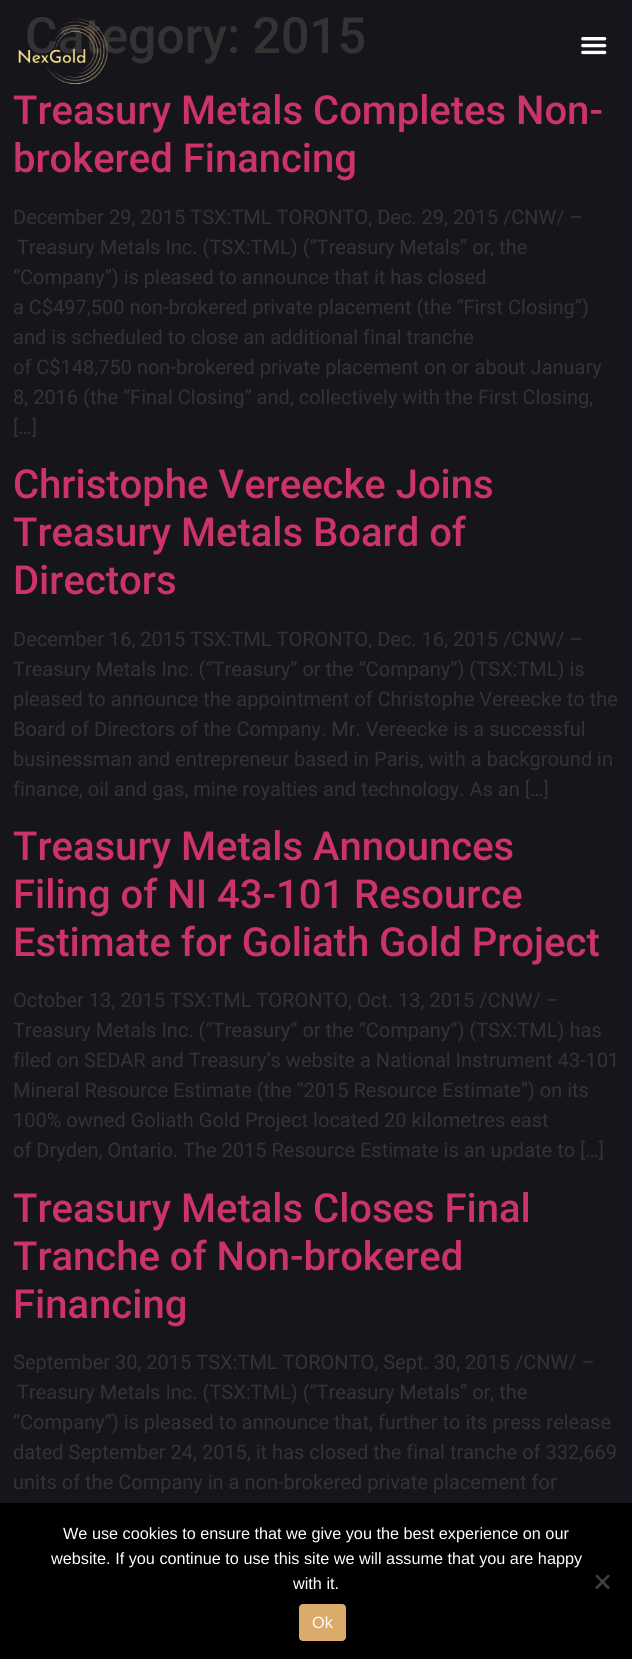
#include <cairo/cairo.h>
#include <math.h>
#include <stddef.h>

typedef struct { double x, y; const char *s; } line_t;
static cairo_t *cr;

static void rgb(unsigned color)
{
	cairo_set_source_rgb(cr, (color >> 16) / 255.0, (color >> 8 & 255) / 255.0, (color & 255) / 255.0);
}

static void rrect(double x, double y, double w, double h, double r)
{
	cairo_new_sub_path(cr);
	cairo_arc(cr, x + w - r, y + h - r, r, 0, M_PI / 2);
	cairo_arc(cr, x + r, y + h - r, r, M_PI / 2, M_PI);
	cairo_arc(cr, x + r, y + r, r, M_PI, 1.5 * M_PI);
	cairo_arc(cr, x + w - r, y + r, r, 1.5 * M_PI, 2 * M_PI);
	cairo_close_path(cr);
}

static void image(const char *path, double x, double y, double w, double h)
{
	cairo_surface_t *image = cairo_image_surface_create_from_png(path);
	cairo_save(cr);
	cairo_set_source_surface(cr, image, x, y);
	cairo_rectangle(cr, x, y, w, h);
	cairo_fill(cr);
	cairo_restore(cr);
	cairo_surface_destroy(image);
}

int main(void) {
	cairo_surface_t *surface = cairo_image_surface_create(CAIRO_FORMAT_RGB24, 632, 1659);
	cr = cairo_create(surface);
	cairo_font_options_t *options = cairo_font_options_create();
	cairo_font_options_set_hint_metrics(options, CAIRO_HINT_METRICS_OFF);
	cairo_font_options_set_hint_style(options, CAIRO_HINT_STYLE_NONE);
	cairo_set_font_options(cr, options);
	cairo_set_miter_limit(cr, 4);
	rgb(0x16151b);
	cairo_paint(cr);
	image("img/2.png", 581, 37, 26, 18);
	rgb(0x000000);
	cairo_rectangle(cr, 0, 1503, 632, 156);
	cairo_fill(cr);
	rgb(0x404040);
	cairo_new_path(cr);
	cairo_move_to(cr, 608, 1574.5);
	cairo_line_to(cr, 610, 1576);
	cairo_line_to(cr, 597, 1589.5);
	cairo_line_to(cr, 595, 1587.5);
	cairo_close_path(cr);
	cairo_fill(cr);
	cairo_new_path(cr);
	cairo_move_to(cr, 595, 1576);
	cairo_line_to(cr, 597, 1574.5);
	cairo_line_to(cr, 610, 1587.5);
	cairo_line_to(cr, 608, 1589.5);
	cairo_close_path(cr);
	cairo_fill(cr);
	rgb(0xdaab6a);
	rrect(299, 1604, 47, 37, 4);
	cairo_fill(cr);
	cairo_select_font_face(cr, "Roboto Medium", CAIRO_FONT_SLANT_NORMAL, CAIRO_FONT_WEIGHT_NORMAL);
	cairo_set_font_size(cr, 50);
	rgb(0x333333);
	cairo_move_to(cr, 25, 53);
	cairo_show_text(cr, "Category: 2015");
	cairo_set_font_size(cr, 40);
	rgb(0xcc3366);
	cairo_move_to(cr, 13, 124);
	cairo_show_text(cr, "Treasury Metals Completes Non-");
	cairo_move_to(cr, 13, 172);
	cairo_show_text(cr, "brokered Financing");
	cairo_select_font_face(cr, "Roboto", CAIRO_FONT_SLANT_NORMAL, CAIRO_FONT_WEIGHT_NORMAL);
	cairo_set_font_size(cr, 20);
	rgb(0x333333);
	{
		static const line_t items[] = {
			{13, 224, "December 29, 2015 TSX:TML TORONTO, Dec. 29, 2015 /CNW/ –"},
			{17, 254, "Treasury Metals Inc. (TSX:TML) (“Treasury Metals” or, the"},
			{13, 284, "“Company”) is pleased to announce that it has closed"},
			{13, 314, "a C$497,500 non-brokered private placement (the “First Closing”)"},
			{13, 344, "and is scheduled to close an additional final tranche"},
			{13, 374, "of C$148,750 non-brokered private placement on or about January"},
			{13, 404, "8, 2016 (the “Final Closing” and, collectively with the First Closing,"},
			{13, 434, "[…]"},
		};
		for (size_t i = 0; i < sizeof items / sizeof *items; i++) {
			cairo_move_to(cr, items[i].x, items[i].y);
			cairo_show_text(cr, items[i].s);
		}
	}
	cairo_select_font_face(cr, "Roboto Medium", CAIRO_FONT_SLANT_NORMAL, CAIRO_FONT_WEIGHT_NORMAL);
	cairo_set_font_size(cr, 40);
	rgb(0xcc3366);
	{
		static const line_t items[] = {
			{13, 498, "Christophe Vereecke Joins"},
			{13, 546, "Treasury Metals Board of"},
			{13, 594, "Directors"},
		};
		for (size_t i = 0; i < sizeof items / sizeof *items; i++) {
			cairo_move_to(cr, items[i].x, items[i].y);
			cairo_show_text(cr, items[i].s);
		}
	}
	cairo_select_font_face(cr, "Roboto", CAIRO_FONT_SLANT_NORMAL, CAIRO_FONT_WEIGHT_NORMAL);
	cairo_set_font_size(cr, 20);
	rgb(0x333333);
	{
		static const line_t items[] = {
			{13, 646, "December 16, 2015 TSX:TML TORONTO, Dec. 16, 2015 /CNW/ –"},
			{13, 676, "Treasury Metals Inc. (“Treasury” or the “Company”) (TSX:TML) is"},
			{13, 706, "pleased to announce the appointment of Christophe Vereecke to the"},
			{13, 736, "Board of Directors of the Company. Mr. Vereecke is a successful"},
			{13, 766, "businessman and entrepreneur based in Paris, with a background in"},
			{13, 796, "finance, oil and gas, mine royalties and technology. As an […]"},
		};
		for (size_t i = 0; i < sizeof items / sizeof *items; i++) {
			cairo_move_to(cr, items[i].x, items[i].y);
			cairo_show_text(cr, items[i].s);
		}
	}
	cairo_select_font_face(cr, "Roboto Medium", CAIRO_FONT_SLANT_NORMAL, CAIRO_FONT_WEIGHT_NORMAL);
	cairo_set_font_size(cr, 40);
	rgb(0xcc3366);
	{
		static const line_t items[] = {
			{13, 860, "Treasury Metals Announces"},
			{13, 908, "Filing of NI 43-101 Resource"},
			{13, 956, "Estimate for Goliath Gold Project"},
		};
		for (size_t i = 0; i < sizeof items / sizeof *items; i++) {
			cairo_move_to(cr, items[i].x, items[i].y);
			cairo_show_text(cr, items[i].s);
		}
	}
	cairo_select_font_face(cr, "Roboto", CAIRO_FONT_SLANT_NORMAL, CAIRO_FONT_WEIGHT_NORMAL);
	cairo_set_font_size(cr, 20);
	rgb(0x333333);
	{
		static const line_t items[] = {
			{13, 1007, "October 13, 2015 TSX:TML TORONTO, Oct. 13, 2015 /CNW/ –"},
			{13, 1037, "Treasury Metals Inc. (“Treasury” or the “Company”) (TSX:TML) has"},
			{13, 1067, "filed on SEDAR and Treasury’s website a National Instrument 43-101"},
			{13, 1097, "Mineral Resource Estimate (the “2015 Resource Estimate”) on its"},
			{13, 1127, "100% owned Goliath Gold Project located 20 kilometres east"},
			{13, 1157, "of Dryden, Ontario. The 2015 Resource Estimate is an update to […]"},
		};
		for (size_t i = 0; i < sizeof items / sizeof *items; i++) {
			cairo_move_to(cr, items[i].x, items[i].y);
			cairo_show_text(cr, items[i].s);
		}
	}
	cairo_select_font_face(cr, "Roboto Medium", CAIRO_FONT_SLANT_NORMAL, CAIRO_FONT_WEIGHT_NORMAL);
	cairo_set_font_size(cr, 40);
	rgb(0xcc3366);
	{
		static const line_t items[] = {
			{13, 1222, "Treasury Metals Closes Final"},
			{13, 1270, "Tranche of Non-brokered"},
			{13, 1318, "Financing"},
		};
		for (size_t i = 0; i < sizeof items / sizeof *items; i++) {
			cairo_move_to(cr, items[i].x, items[i].y);
			cairo_show_text(cr, items[i].s);
		}
	}
	cairo_select_font_face(cr, "Roboto", CAIRO_FONT_SLANT_NORMAL, CAIRO_FONT_WEIGHT_NORMAL);
	cairo_set_font_size(cr, 20);
	rgb(0x333333);
	{
		static const line_t items[] = {
			{13, 1369, "September 30, 2015 TSX:TML TORONTO, Sept. 30, 2015 /CNW/ –"},
			{17, 1399, "Treasury Metals Inc. (TSX:TML) (“Treasury Metals” or, the"},
			{13, 1429, "“Company”) is pleased to announce that, further to its press release"},
			{13, 1459, "dated September 24, 2015, it has closed the final tranche of 332,669"},
			{13, 1489, "units of the Company in a non-brokered private placement for"},
		};
		for (size_t i = 0; i < sizeof items / sizeof *items; i++) {
			cairo_move_to(cr, items[i].x, items[i].y);
			cairo_show_text(cr, items[i].s);
		}
	}
	image("img/1.png", 18, 18, 90, 66);
	cairo_select_font_face(cr, "Liberation Sans", CAIRO_FONT_SLANT_NORMAL, CAIRO_FONT_WEIGHT_NORMAL);
	cairo_set_font_size(cr, 16.25);
	rgb(0xffffff);
	{
		static const line_t items[] = {
			{63, 1539, "We use cookies to ensure that we give you the best experience on our"},
			{51, 1564, "website. If you continue to use this site we will assume that you are happy"},
			{293, 1589, "with it."},
			{312, 1628, "Ok"},
		};
		for (size_t i = 0; i < sizeof items / sizeof *items; i++) {
			cairo_move_to(cr, items[i].x, items[i].y);
			cairo_show_text(cr, items[i].s);
		}
	}
	cairo_surface_write_to_png(surface, "page.png");
	cairo_font_options_destroy(options);
	cairo_destroy(cr);
	cairo_surface_destroy(surface);
	return 0;
}
